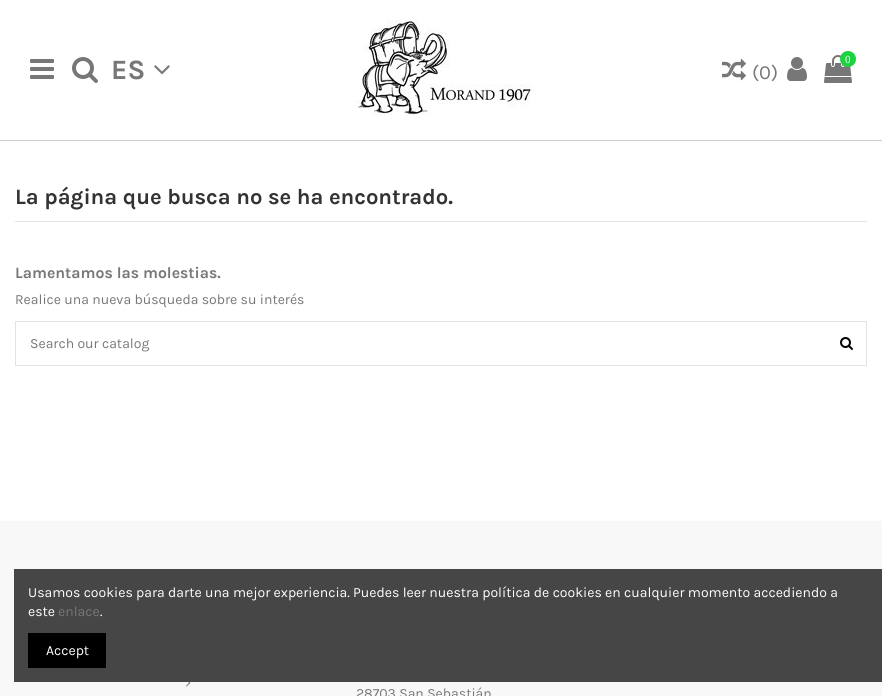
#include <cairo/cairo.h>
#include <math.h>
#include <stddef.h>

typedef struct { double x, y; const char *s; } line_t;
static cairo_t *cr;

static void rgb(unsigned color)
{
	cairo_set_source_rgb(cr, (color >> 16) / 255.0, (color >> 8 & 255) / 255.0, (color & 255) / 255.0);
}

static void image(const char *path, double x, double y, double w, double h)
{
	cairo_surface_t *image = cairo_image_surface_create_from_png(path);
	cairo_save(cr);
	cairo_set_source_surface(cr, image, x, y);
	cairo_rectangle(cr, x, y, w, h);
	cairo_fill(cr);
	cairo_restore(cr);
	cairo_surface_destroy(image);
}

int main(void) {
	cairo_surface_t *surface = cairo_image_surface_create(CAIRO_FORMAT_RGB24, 882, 696);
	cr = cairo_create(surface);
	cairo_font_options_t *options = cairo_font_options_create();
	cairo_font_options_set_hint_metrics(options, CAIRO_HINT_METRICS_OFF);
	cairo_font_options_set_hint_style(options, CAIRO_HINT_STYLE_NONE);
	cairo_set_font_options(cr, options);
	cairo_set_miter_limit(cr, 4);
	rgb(0xffffff);
	cairo_paint(cr);
	rgb(0xcccccc);
	cairo_rectangle(cr, 0, 140, 882, 1);
	cairo_fill(cr);
	image("img/1.png", 30, 59, 24, 20);
	image("img/2.png", 72, 57, 26, 26);
	image("img/3.png", 154, 65, 16, 10);
	image("img/4.png", 354, 20, 183, 96);
	image("img/5.png", 722, 58, 24, 23);
	image("img/6.png", 787, 57, 20, 24);
	image("img/7.png", 824, 55, 28, 28);
	rgb(0x1bd33f);
	cairo_arc(cr, 848, 59, 8, 0, 2 * M_PI);
	cairo_fill(cr);
	rgb(0xe3e3e3);
	cairo_rectangle(cr, 15, 221, 852, 1);
	cairo_fill(cr);
	cairo_rectangle(cr, 15.5, 321.5, 851, 44);
	cairo_set_line_width(cr, 1);
	cairo_stroke(cr);
	image("img/8.png", 840, 337, 13, 13);
	rgb(0xf8f8f8);
	cairo_rectangle(cr, 0, 521, 882, 175);
	cairo_fill(cr);
	image("img/9.png", 186, 682, 5, 5);
	rgb(0x464646);
	cairo_rectangle(cr, 14, 569, 868, 113);
	cairo_fill(cr);
	rgb(0x000000);
	cairo_rectangle(cr, 28, 633, 78, 35);
	cairo_fill(cr);
	cairo_select_font_face(cr, "Karla", CAIRO_FONT_SLANT_NORMAL, CAIRO_FONT_WEIGHT_BOLD);
	cairo_set_font_size(cr, 28);
	rgb(0x777777);
	cairo_move_to(cr, 111, 79);
	cairo_show_text(cr, "ES");
	cairo_select_font_face(cr, "Karla", CAIRO_FONT_SLANT_NORMAL, CAIRO_FONT_WEIGHT_NORMAL);
	cairo_set_font_size(cr, 20);
	cairo_move_to(cr, 752, 79);
	cairo_show_text(cr, "(0)");
	cairo_select_font_face(cr, "Liberation Serif", CAIRO_FONT_SLANT_NORMAL, CAIRO_FONT_WEIGHT_NORMAL);
	cairo_set_font_size(cr, 11);
	rgb(0xffffff);
	cairo_move_to(cr, 845, 63);
	cairo_show_text(cr, "0");
	cairo_select_font_face(cr, "Karla", CAIRO_FONT_SLANT_NORMAL, CAIRO_FONT_WEIGHT_BOLD);
	cairo_set_font_size(cr, 22);
	rgb(0x333333);
	cairo_move_to(cr, 15, 204);
	cairo_show_text(cr, "La página que busca no se ha encontrado.");
	cairo_set_font_size(cr, 15.75);
	rgb(0x777777);
	cairo_move_to(cr, 15, 278);
	cairo_show_text(cr, "Lamentamos las molestias.");
	cairo_select_font_face(cr, "Karla", CAIRO_FONT_SLANT_NORMAL, CAIRO_FONT_WEIGHT_NORMAL);
	cairo_set_font_size(cr, 14);
	{
		static const line_t items[] = {
			{15, 304, "Realice una nueva búsqueda sobre su interés"},
			{30, 348, "Search our catalog"},
			{356, 698, "28703 San Sebastián"},
		};
		for (size_t i = 0; i < sizeof items / sizeof *items; i++) {
			cairo_move_to(cr, items[i].x, items[i].y);
			cairo_show_text(cr, items[i].s);
		}
	}
	rgb(0xffffff);
	cairo_move_to(cr, 28, 597);
	cairo_show_text(cr, "Usamos cookies para darte una mejor experiencia. Puedes leer nuestra política de cookies en cualquier momento accediendo a");
	cairo_move_to(cr, 28, 616);
	cairo_show_text(cr, "este");
	rgb(0x777777);
	cairo_move_to(cr, 58, 616);
	cairo_show_text(cr, "enlace");
	rgb(0xffffff);
	cairo_move_to(cr, 100, 616);
	cairo_show_text(cr, ".");
	cairo_move_to(cr, 46, 655);
	cairo_show_text(cr, "Accept");
	cairo_surface_write_to_png(surface, "page.png");
	cairo_font_options_destroy(options);
	cairo_destroy(cr);
	cairo_surface_destroy(surface);
	return 0;
}
